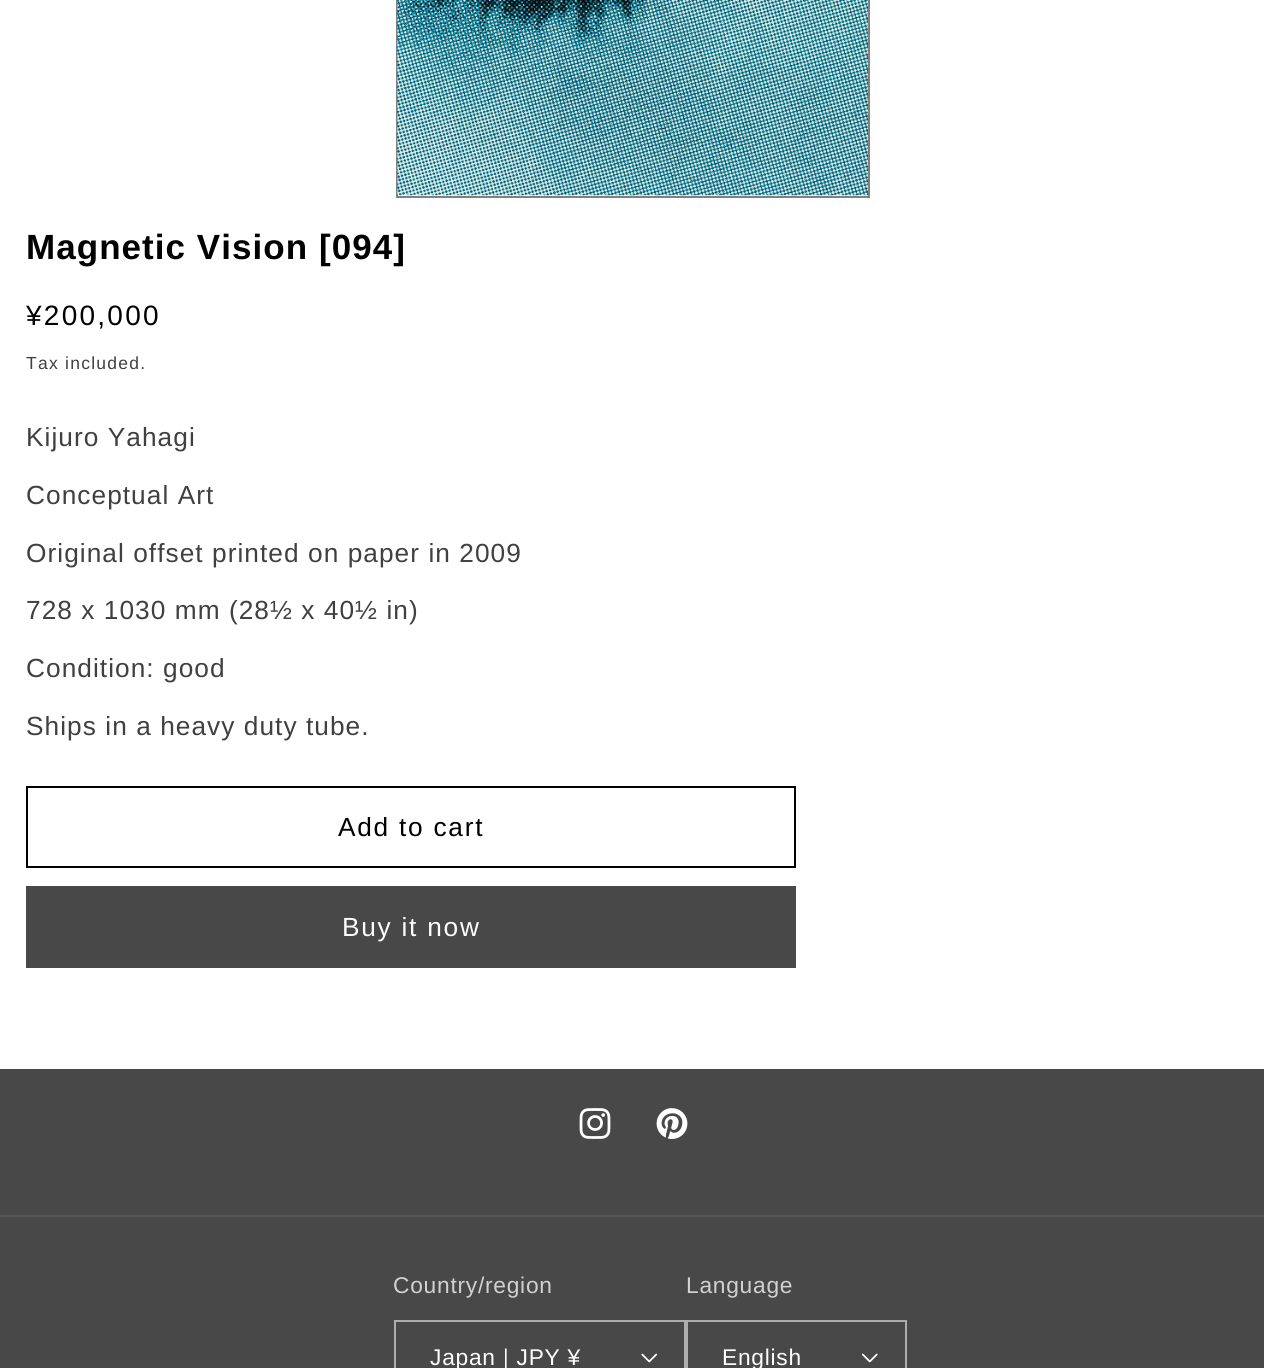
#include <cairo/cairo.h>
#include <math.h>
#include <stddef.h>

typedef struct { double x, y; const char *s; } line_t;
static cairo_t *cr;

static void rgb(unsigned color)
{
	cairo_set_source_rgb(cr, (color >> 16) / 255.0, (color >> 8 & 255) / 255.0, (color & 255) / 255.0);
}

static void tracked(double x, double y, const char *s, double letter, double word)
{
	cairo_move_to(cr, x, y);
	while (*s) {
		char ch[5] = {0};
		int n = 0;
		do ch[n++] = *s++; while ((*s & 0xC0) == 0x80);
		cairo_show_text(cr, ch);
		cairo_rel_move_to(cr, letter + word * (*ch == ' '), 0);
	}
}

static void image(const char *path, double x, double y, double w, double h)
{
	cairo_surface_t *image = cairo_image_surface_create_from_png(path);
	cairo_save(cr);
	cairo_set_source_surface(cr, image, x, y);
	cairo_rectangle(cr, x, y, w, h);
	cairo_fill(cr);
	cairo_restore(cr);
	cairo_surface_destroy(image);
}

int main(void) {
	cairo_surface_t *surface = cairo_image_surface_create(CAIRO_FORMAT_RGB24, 1264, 1368);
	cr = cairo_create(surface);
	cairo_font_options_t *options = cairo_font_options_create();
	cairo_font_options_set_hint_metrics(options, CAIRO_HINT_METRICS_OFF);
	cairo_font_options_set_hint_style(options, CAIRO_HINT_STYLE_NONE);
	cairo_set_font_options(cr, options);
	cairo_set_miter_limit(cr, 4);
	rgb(0xffffff);
	cairo_paint(cr);
	cairo_rectangle(cr, 397, -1, 472, 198);
	rgb(0x808080);
	cairo_stroke(cr);
	image("img/1.png", 397, 0, 471, 196);
	cairo_rectangle(cr, 27, 787, 768, 80);
	rgb(0x000000);
	cairo_stroke(cr);
	rgb(0x494848);
	cairo_rectangle(cr, 26, 886, 770, 82);
	cairo_fill(cr);
	cairo_rectangle(cr, 0, 1069, 1264, 299);
	cairo_fill(cr);
	image("img/2.png", 579, 1108, 32, 31);
	image("img/3.png", 656, 1108, 32, 31);
	rgb(0x585757);
	cairo_rectangle(cr, 0, 1215, 1264, 2);
	cairo_fill(cr);
	image("img/4.png", 641, 1353, 17, 10);
	cairo_rectangle(cr, 395, 1321, 290, 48);
	rgb(0xadadad);
	cairo_stroke(cr);
	image("img/5.png", 861, 1353, 17, 10);
	cairo_rectangle(cr, 687, 1321, 219, 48);
	cairo_stroke(cr);
	cairo_select_font_face(cr, "Liberation Sans", CAIRO_FONT_SLANT_NORMAL, CAIRO_FONT_WEIGHT_BOLD);
	cairo_set_font_size(cr, 35);
	rgb(0x000000);
	tracked(26, 259, "Magnetic Vision [094]", 1.05, 0);
	cairo_select_font_face(cr, "Liberation Sans", CAIRO_FONT_SLANT_NORMAL, CAIRO_FONT_WEIGHT_NORMAL);
	cairo_set_font_size(cr, 28);
	tracked(26, 325, "¥200,000", 2.25, 0);
	cairo_set_font_size(cr, 17.5);
	rgb(0x404040);
	tracked(26, 369, "Tax included.", 1.25, 0);
	cairo_set_font_size(cr, 26.25);
	{
		static const line_t items[] = {
			{26, 446, "Kijuro Yahagi"},
			{26, 504, "Conceptual Art"},
			{26, 562, "Original offset printed on paper in 2009"},
			{26, 619, "728 x 1030 mm (28½ x 40½ in)"},
			{26, 677, "Condition: good"},
			{26, 735, "Ships in a heavy duty tube."},
		};
		for (size_t i = 0; i < sizeof items / sizeof *items; i++) {
			tracked(items[i].x, items[i].y, items[i].s, 1.05, 0);
		}
	}
	rgb(0x000000);
	tracked(338, 836, "Add to cart", 1.75, 0);
	rgb(0xfcfcfc);
	tracked(342, 936, "Buy it now", 1.75, 0);
	cairo_set_font_size(cr, 22.75);
	rgb(0xd2d1d1);
	tracked(393, 1293, "Country/region", 0.75, 0);
	rgb(0xfcfcfc);
	tracked(430, 1365, "Japan | JPY ¥", 0.75, 0);
	rgb(0xd2d1d1);
	tracked(686, 1293, "Language", 0.75, 0);
	rgb(0xfcfcfc);
	tracked(722, 1365, "English", 0.75, 0);
	cairo_surface_write_to_png(surface, "page.png");
	cairo_font_options_destroy(options);
	cairo_destroy(cr);
	cairo_surface_destroy(surface);
	return 0;
}
